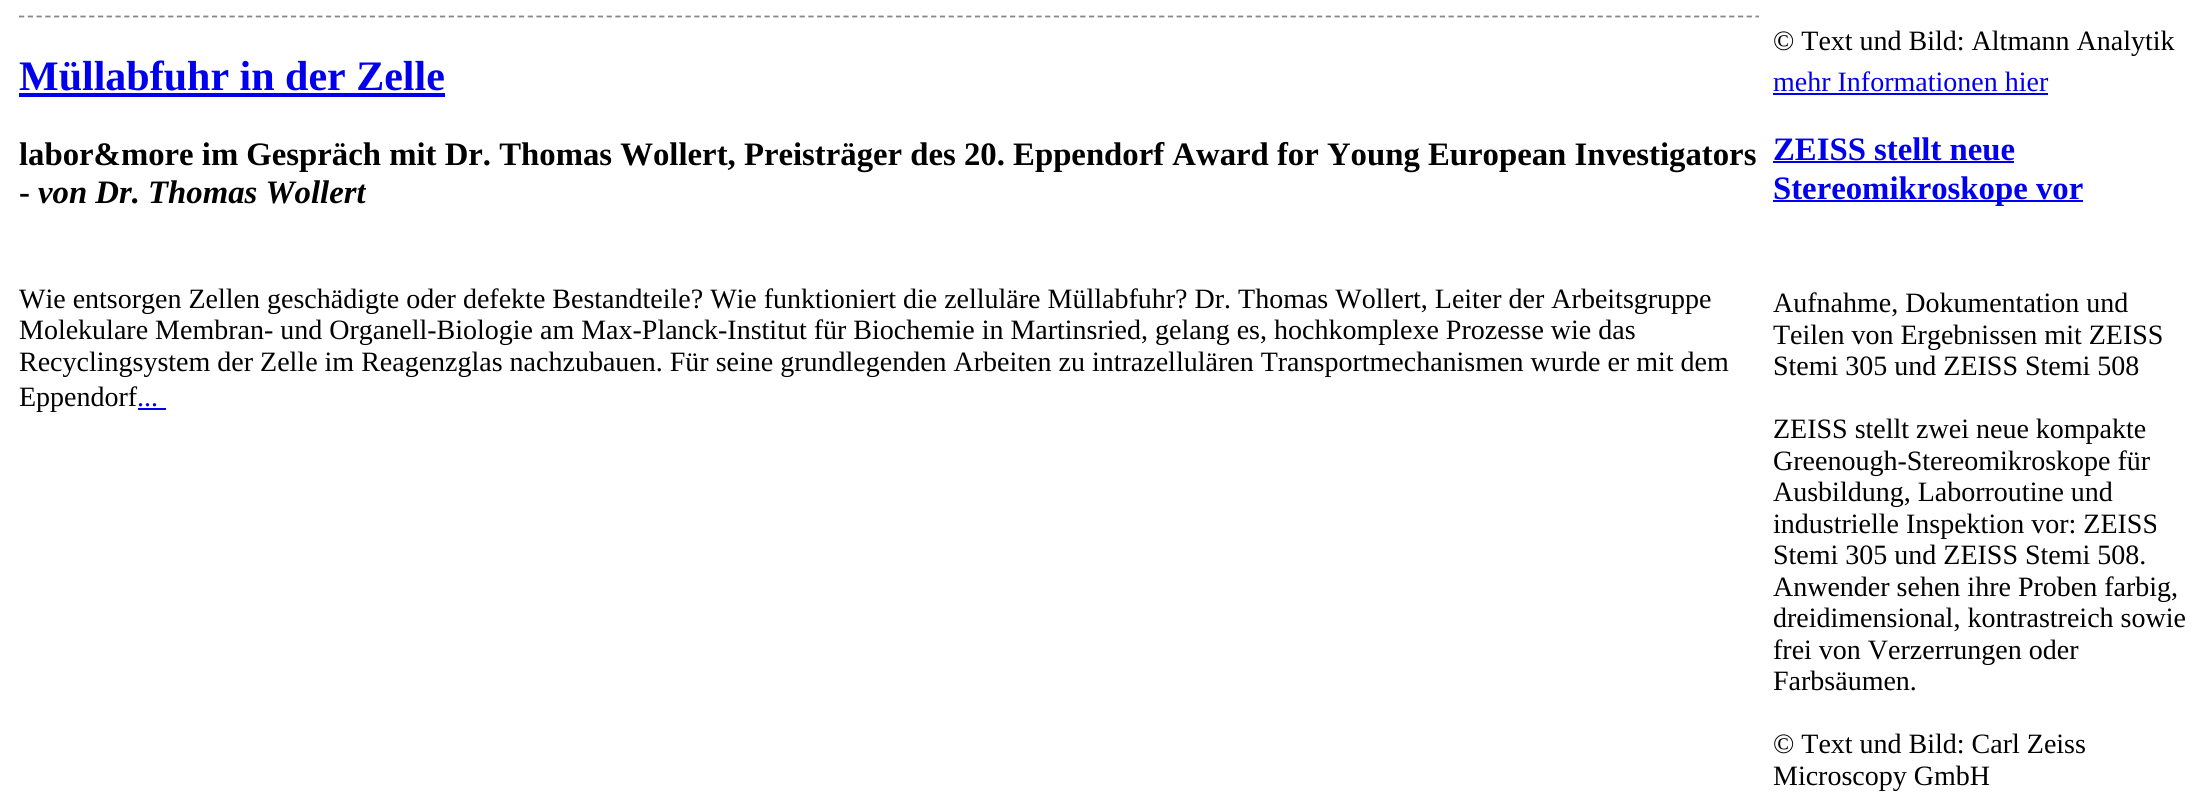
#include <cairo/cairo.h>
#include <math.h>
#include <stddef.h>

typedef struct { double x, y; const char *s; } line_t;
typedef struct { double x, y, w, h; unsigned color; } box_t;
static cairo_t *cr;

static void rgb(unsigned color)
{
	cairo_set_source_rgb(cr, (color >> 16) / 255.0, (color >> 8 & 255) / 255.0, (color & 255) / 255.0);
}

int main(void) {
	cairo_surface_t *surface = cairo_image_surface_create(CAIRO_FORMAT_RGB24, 2212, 802);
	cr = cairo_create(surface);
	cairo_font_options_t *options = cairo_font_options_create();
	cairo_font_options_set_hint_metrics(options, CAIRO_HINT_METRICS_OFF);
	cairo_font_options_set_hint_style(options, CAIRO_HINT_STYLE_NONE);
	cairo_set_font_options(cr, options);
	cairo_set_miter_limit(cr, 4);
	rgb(0xffffff);
	cairo_paint(cr);
	cairo_new_path(cr);
	cairo_move_to(cr, 19, 16.5);
	cairo_line_to(cr, 1759, 16.5);
	rgb(0x888888);
	cairo_set_line_width(cr, 1.8);
	cairo_set_dash(cr, (double[]){5.25, 3.52}, 2, 0);
	cairo_stroke(cr);
	{
		static const box_t items[] = {
			{19, 93, 426, 4, 0x0000ee},
			{138, 408, 28, 2, 0x0000ee},
			{1773, 93, 275, 2, 0x0000ee},
			{1773, 161, 241, 2, 0x0000ee},
			{1773, 200, 310, 2, 0x0000ee},
		};
		for (size_t i = 0; i < sizeof items / sizeof *items; i++) {
			rgb(items[i].color);
			cairo_rectangle(cr, items[i].x, items[i].y, items[i].w, items[i].h);
			cairo_fill(cr);
		}
	}
	cairo_select_font_face(cr, "Liberation Serif", CAIRO_FONT_SLANT_NORMAL, CAIRO_FONT_WEIGHT_BOLD);
	cairo_set_font_size(cr, 42);
	cairo_move_to(cr, 19, 90);
	cairo_show_text(cr, "Müllabfuhr in der Zelle");
	cairo_set_font_size(cr, 32.75);
	rgb(0x000000);
	cairo_move_to(cr, 19, 165);
	cairo_show_text(cr, "labor&more im Gespräch mit Dr. Thomas Wollert, Preisträger des 20. Eppendorf Award for Young European Investigators");
	cairo_move_to(cr, 19, 203);
	cairo_show_text(cr, "-");
	cairo_select_font_face(cr, "Liberation Serif", CAIRO_FONT_SLANT_ITALIC, CAIRO_FONT_WEIGHT_BOLD);
	cairo_move_to(cr, 38, 203);
	cairo_show_text(cr, "von Dr. Thomas Wollert");
	cairo_select_font_face(cr, "Liberation Serif", CAIRO_FONT_SLANT_NORMAL, CAIRO_FONT_WEIGHT_NORMAL);
	cairo_set_font_size(cr, 28);
	{
		static const line_t items[] = {
			{19, 308, "Wie entsorgen Zellen geschädigte oder defekte Bestandteile? Wie funktioniert die zelluläre Müllabfuhr? Dr. Thomas Wollert, Leiter der Arbeitsgruppe"},
			{19, 339, "Molekulare Membran- und Organell-Biologie am Max-Planck-Institut für Biochemie in Martinsried, gelang es, hochkomplexe Prozesse wie das"},
			{19, 371, "Recyclingsystem der Zelle im Reagenzglas nachzubauen. Für seine grundlegenden Arbeiten zu intrazellulären Transportmechanismen wurde er mit dem"},
			{19, 406, "Eppendorf"},
		};
		for (size_t i = 0; i < sizeof items / sizeof *items; i++) {
			cairo_move_to(cr, items[i].x, items[i].y);
			cairo_show_text(cr, items[i].s);
		}
	}
	rgb(0x0000ee);
	cairo_move_to(cr, 137, 406);
	cairo_show_text(cr, "...");
	rgb(0x000000);
	cairo_move_to(cr, 1773, 50);
	cairo_show_text(cr, "© Text und Bild: Altmann Analytik");
	rgb(0x0000ee);
	cairo_move_to(cr, 1773, 91);
	cairo_show_text(cr, "mehr Informationen hier");
	cairo_select_font_face(cr, "Liberation Serif", CAIRO_FONT_SLANT_NORMAL, CAIRO_FONT_WEIGHT_BOLD);
	cairo_set_font_size(cr, 32.75);
	cairo_move_to(cr, 1773, 160);
	cairo_show_text(cr, "ZEISS stellt neue");
	cairo_move_to(cr, 1773, 199);
	cairo_show_text(cr, "Stereomikroskope vor");
	cairo_select_font_face(cr, "Liberation Serif", CAIRO_FONT_SLANT_NORMAL, CAIRO_FONT_WEIGHT_NORMAL);
	cairo_set_font_size(cr, 28);
	rgb(0x000000);
	{
		static const line_t items[] = {
			{1773, 312, "Aufnahme, Dokumentation und"},
			{1773, 344, "Teilen von Ergebnissen mit ZEISS"},
			{1773, 375, "Stemi 305 und ZEISS Stemi 508"},
			{1773, 438, "ZEISS stellt zwei neue kompakte"},
			{1773, 470, "Greenough-Stereomikroskope für"},
			{1773, 501, "Ausbildung, Laborroutine und"},
			{1773, 533, "industrielle Inspektion vor: ZEISS"},
			{1773, 564, "Stemi 305 und ZEISS Stemi 508."},
			{1773, 596, "Anwender sehen ihre Proben farbig,"},
			{1773, 627, "dreidimensional, kontrastreich sowie"},
			{1773, 659, "frei von Verzerrungen oder"},
			{1773, 690, "Farbsäumen."},
			{1773, 753, "© Text und Bild: Carl Zeiss"},
			{1773, 785, "Microscopy GmbH"},
		};
		for (size_t i = 0; i < sizeof items / sizeof *items; i++) {
			cairo_move_to(cr, items[i].x, items[i].y);
			cairo_show_text(cr, items[i].s);
		}
	}
	cairo_surface_write_to_png(surface, "page.png");
	cairo_font_options_destroy(options);
	cairo_destroy(cr);
	cairo_surface_destroy(surface);
	return 0;
}
